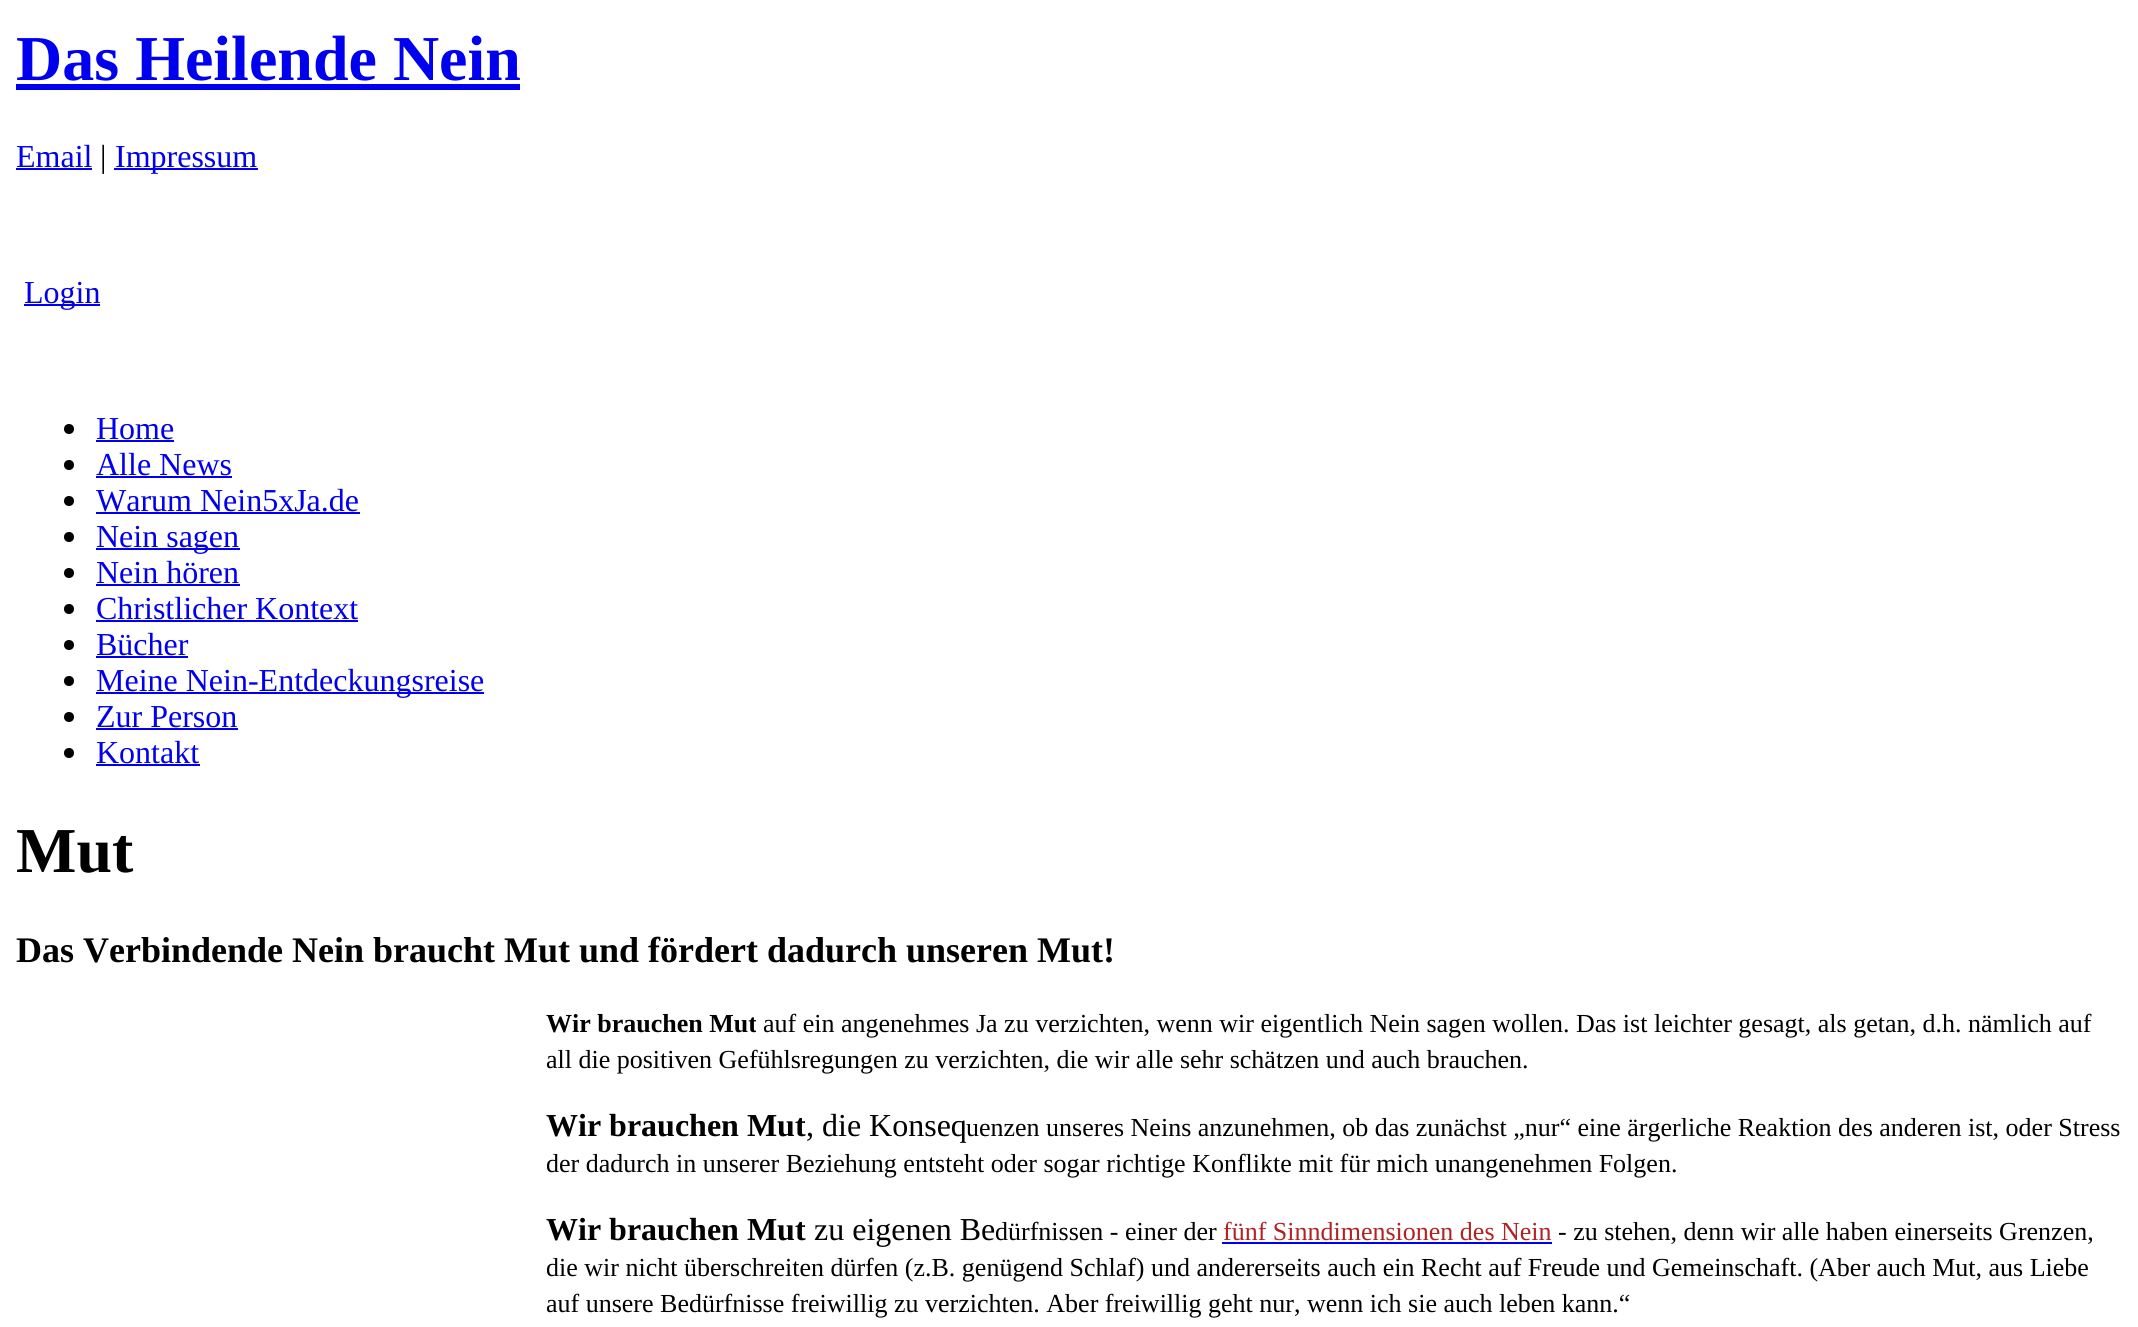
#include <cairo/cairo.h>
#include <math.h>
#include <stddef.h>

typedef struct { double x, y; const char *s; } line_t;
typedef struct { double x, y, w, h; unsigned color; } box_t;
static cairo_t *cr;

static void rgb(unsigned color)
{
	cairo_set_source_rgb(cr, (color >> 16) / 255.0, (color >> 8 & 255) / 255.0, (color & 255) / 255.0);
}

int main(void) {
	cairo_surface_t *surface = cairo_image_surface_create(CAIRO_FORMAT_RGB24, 2138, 1327);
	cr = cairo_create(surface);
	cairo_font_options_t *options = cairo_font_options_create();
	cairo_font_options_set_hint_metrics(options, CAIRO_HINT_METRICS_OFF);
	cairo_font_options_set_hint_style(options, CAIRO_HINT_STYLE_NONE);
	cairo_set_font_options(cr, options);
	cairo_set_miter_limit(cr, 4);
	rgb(0xffffff);
	cairo_paint(cr);
	{
		static const box_t items[] = {
			{16, 84, 504, 6, 0x0000ee},
			{16, 168, 76, 2, 0x0000ee},
			{114, 168, 144, 2, 0x0000ee},
			{24, 304, 76, 2, 0x0000ee},
		};
		for (size_t i = 0; i < sizeof items / sizeof *items; i++) {
			rgb(items[i].color);
			cairo_rectangle(cr, items[i].x, items[i].y, items[i].w, items[i].h);
			cairo_fill(cr);
		}
	}
	rgb(0x000000);
	cairo_arc(cr, 69, 429, 5, 0, 2 * M_PI);
	cairo_fill(cr);
	rgb(0x0000ee);
	cairo_rectangle(cr, 96, 440, 78, 2);
	cairo_fill(cr);
	rgb(0x000000);
	cairo_arc(cr, 69, 465, 5, 0, 2 * M_PI);
	cairo_fill(cr);
	rgb(0x0000ee);
	cairo_rectangle(cr, 96, 476, 136, 2);
	cairo_fill(cr);
	rgb(0x000000);
	cairo_arc(cr, 69, 501, 5, 0, 2 * M_PI);
	cairo_fill(cr);
	rgb(0x0000ee);
	cairo_rectangle(cr, 96, 512, 264, 2);
	cairo_fill(cr);
	rgb(0x000000);
	cairo_arc(cr, 69, 537, 5, 0, 2 * M_PI);
	cairo_fill(cr);
	rgb(0x0000ee);
	cairo_rectangle(cr, 96, 548, 144, 2);
	cairo_fill(cr);
	rgb(0x000000);
	cairo_arc(cr, 69, 573, 5, 0, 2 * M_PI);
	cairo_fill(cr);
	rgb(0x0000ee);
	cairo_rectangle(cr, 96, 584, 144, 2);
	cairo_fill(cr);
	rgb(0x000000);
	cairo_arc(cr, 69, 609, 5, 0, 2 * M_PI);
	cairo_fill(cr);
	rgb(0x0000ee);
	cairo_rectangle(cr, 96, 620, 262, 2);
	cairo_fill(cr);
	rgb(0x000000);
	cairo_arc(cr, 69, 645, 5, 0, 2 * M_PI);
	cairo_fill(cr);
	rgb(0x0000ee);
	cairo_rectangle(cr, 96, 656, 92, 2);
	cairo_fill(cr);
	rgb(0x000000);
	cairo_arc(cr, 69, 681, 5, 0, 2 * M_PI);
	cairo_fill(cr);
	rgb(0x0000ee);
	cairo_rectangle(cr, 96, 692, 388, 2);
	cairo_fill(cr);
	rgb(0x000000);
	cairo_arc(cr, 69, 717, 5, 0, 2 * M_PI);
	cairo_fill(cr);
	rgb(0x0000ee);
	cairo_rectangle(cr, 96, 728, 142, 2);
	cairo_fill(cr);
	rgb(0x000000);
	cairo_arc(cr, 69, 753, 5, 0, 2 * M_PI);
	cairo_fill(cr);
	rgb(0x0000ee);
	cairo_rectangle(cr, 96, 764, 104, 2);
	cairo_fill(cr);
	cairo_rectangle(cr, 1222, 1242, 330, 2);
	cairo_fill(cr);
	cairo_select_font_face(cr, "Liberation Serif", CAIRO_FONT_SLANT_NORMAL, CAIRO_FONT_WEIGHT_BOLD);
	cairo_set_font_size(cr, 64);
	cairo_move_to(cr, 16, 80);
	cairo_show_text(cr, "Das Heilende Nein");
	cairo_select_font_face(cr, "Liberation Serif", CAIRO_FONT_SLANT_NORMAL, CAIRO_FONT_WEIGHT_NORMAL);
	cairo_set_font_size(cr, 32);
	cairo_move_to(cr, 16, 167);
	cairo_show_text(cr, "Email");
	rgb(0x000000);
	cairo_move_to(cr, 100, 167);
	cairo_show_text(cr, "|");
	rgb(0x0000ee);
	{
		static const line_t items[] = {
			{115, 167, "Impressum"},
			{24, 303, "Login"},
			{96, 439, "Home"},
			{96, 475, "Alle News"},
			{96, 511, "Warum Nein5xJa.de"},
			{96, 547, "Nein sagen"},
			{96, 583, "Nein hören"},
			{96, 619, "Christlicher Kontext"},
			{96, 655, "Bücher"},
			{96, 691, "Meine Nein-Entdeckungsreise"},
			{96, 727, "Zur Person"},
			{96, 763, "Kontakt"},
		};
		for (size_t i = 0; i < sizeof items / sizeof *items; i++) {
			cairo_move_to(cr, items[i].x, items[i].y);
			cairo_show_text(cr, items[i].s);
		}
	}
	cairo_select_font_face(cr, "Liberation Serif", CAIRO_FONT_SLANT_NORMAL, CAIRO_FONT_WEIGHT_BOLD);
	cairo_set_font_size(cr, 64);
	rgb(0x000000);
	cairo_move_to(cr, 16, 872);
	cairo_show_text(cr, "Mut");
	cairo_set_font_size(cr, 36);
	cairo_move_to(cr, 16, 962);
	cairo_show_text(cr, "Das Verbindende Nein braucht Mut und fördert dadurch unseren Mut!");
	cairo_set_font_size(cr, 26);
	cairo_move_to(cr, 546, 1032);
	cairo_show_text(cr, "Wir brauchen Mut");
	cairo_select_font_face(cr, "Liberation Serif", CAIRO_FONT_SLANT_NORMAL, CAIRO_FONT_WEIGHT_NORMAL);
	cairo_move_to(cr, 763, 1032);
	cairo_show_text(cr, "auf ein angenehmes Ja zu verzichten, wenn wir eigentlich Nein sagen wollen. Das ist leichter gesagt, als getan, d.h. nämlich auf");
	rgb(0xffffff);
	cairo_rectangle(cr, 756, 1020, 1, 12);
	cairo_fill(cr);
	rgb(0x000000);
	cairo_move_to(cr, 546, 1068);
	cairo_show_text(cr, "all die positiven Gefühlsregungen zu verzichten, die wir alle sehr schätzen und auch brauchen.");
	cairo_select_font_face(cr, "Liberation Serif", CAIRO_FONT_SLANT_NORMAL, CAIRO_FONT_WEIGHT_BOLD);
	cairo_set_font_size(cr, 32);
	cairo_move_to(cr, 546, 1136);
	cairo_show_text(cr, "Wir brauchen Mut");
	cairo_select_font_face(cr, "Liberation Serif", CAIRO_FONT_SLANT_NORMAL, CAIRO_FONT_WEIGHT_NORMAL);
	cairo_move_to(cr, 806, 1136);
	cairo_show_text(cr, ", die Konseq");
	cairo_set_font_size(cr, 26);
	cairo_move_to(cr, 966, 1136);
	cairo_show_text(cr, "uenzen unseres Neins anzunehmen, ob das zunächst „nur“ eine ärgerliche Reaktion des anderen ist, oder Stress");
	cairo_move_to(cr, 546, 1172);
	cairo_show_text(cr, "der dadurch in unserer Beziehung entsteht oder sogar richtige Konflikte mit für mich unangenehmen Folgen.");
	cairo_select_font_face(cr, "Liberation Serif", CAIRO_FONT_SLANT_NORMAL, CAIRO_FONT_WEIGHT_BOLD);
	cairo_set_font_size(cr, 32);
	cairo_move_to(cr, 546, 1240);
	cairo_show_text(cr, "Wir brauchen Mut");
	cairo_select_font_face(cr, "Liberation Serif", CAIRO_FONT_SLANT_NORMAL, CAIRO_FONT_WEIGHT_NORMAL);
	cairo_move_to(cr, 814, 1240);
	cairo_show_text(cr, "zu eigenen Be");
	cairo_set_font_size(cr, 26);
	cairo_move_to(cr, 995, 1240);
	cairo_show_text(cr, "dürfnissen - einer der");
	rgb(0xb22222);
	cairo_move_to(cr, 1223, 1240);
	cairo_show_text(cr, "fünf Sinndimensionen des Nein");
	rgb(0x000000);
	{
		static const line_t items[] = {
			{1558, 1240, "- zu stehen, denn wir alle haben einerseits Grenzen,"},
			{546, 1276, "die wir nicht überschreiten dürfen (z.B. genügend Schlaf) und andererseits auch ein Recht auf Freude und Gemeinschaft. (Aber auch Mut, aus Liebe"},
			{546, 1312, "auf unsere Bedürfnisse freiwillig zu verzichten. Aber freiwillig geht nur, wenn ich sie auch leben kann.“"},
		};
		for (size_t i = 0; i < sizeof items / sizeof *items; i++) {
			cairo_move_to(cr, items[i].x, items[i].y);
			cairo_show_text(cr, items[i].s);
		}
	}
	cairo_surface_write_to_png(surface, "page.png");
	cairo_font_options_destroy(options);
	cairo_destroy(cr);
	cairo_surface_destroy(surface);
	return 0;
}
